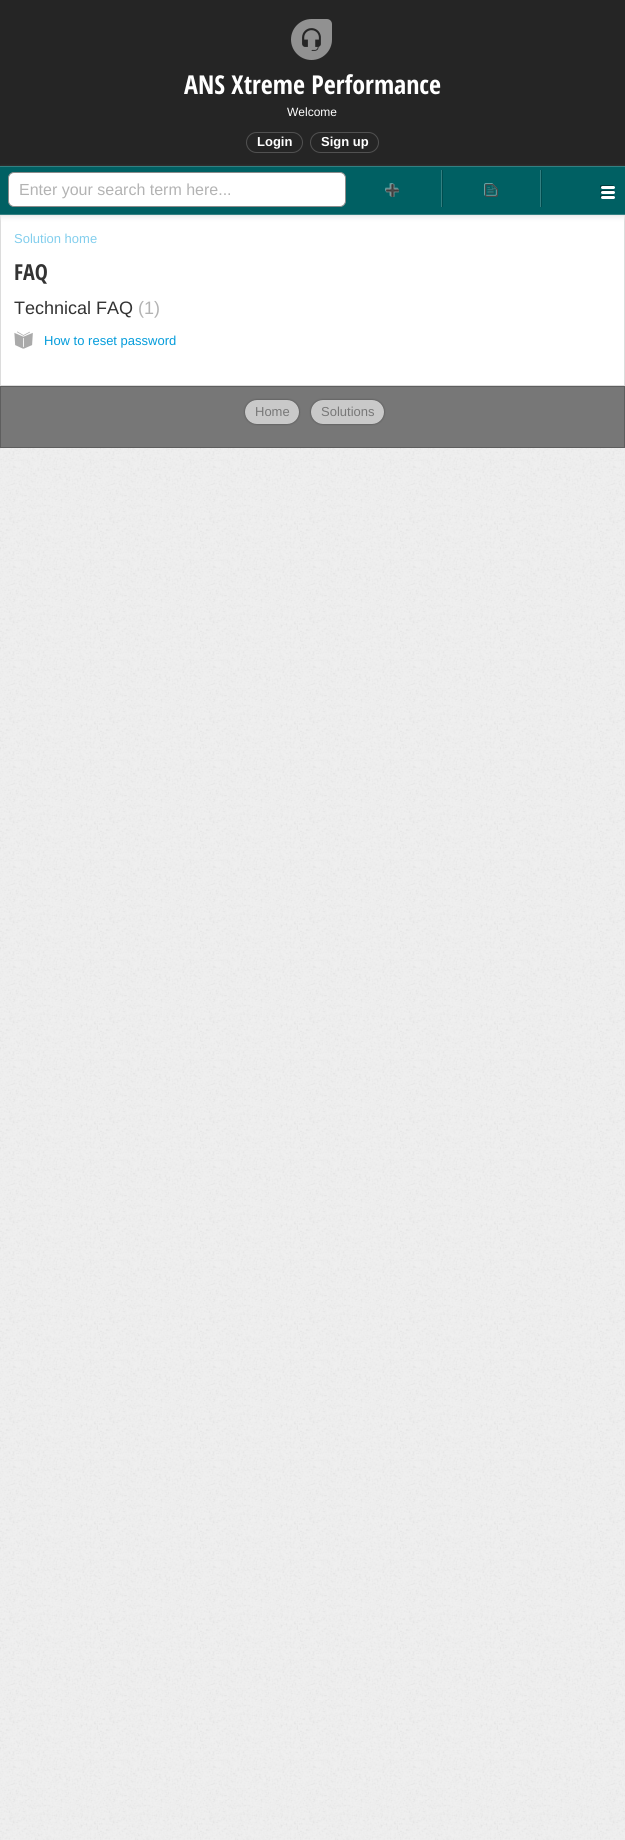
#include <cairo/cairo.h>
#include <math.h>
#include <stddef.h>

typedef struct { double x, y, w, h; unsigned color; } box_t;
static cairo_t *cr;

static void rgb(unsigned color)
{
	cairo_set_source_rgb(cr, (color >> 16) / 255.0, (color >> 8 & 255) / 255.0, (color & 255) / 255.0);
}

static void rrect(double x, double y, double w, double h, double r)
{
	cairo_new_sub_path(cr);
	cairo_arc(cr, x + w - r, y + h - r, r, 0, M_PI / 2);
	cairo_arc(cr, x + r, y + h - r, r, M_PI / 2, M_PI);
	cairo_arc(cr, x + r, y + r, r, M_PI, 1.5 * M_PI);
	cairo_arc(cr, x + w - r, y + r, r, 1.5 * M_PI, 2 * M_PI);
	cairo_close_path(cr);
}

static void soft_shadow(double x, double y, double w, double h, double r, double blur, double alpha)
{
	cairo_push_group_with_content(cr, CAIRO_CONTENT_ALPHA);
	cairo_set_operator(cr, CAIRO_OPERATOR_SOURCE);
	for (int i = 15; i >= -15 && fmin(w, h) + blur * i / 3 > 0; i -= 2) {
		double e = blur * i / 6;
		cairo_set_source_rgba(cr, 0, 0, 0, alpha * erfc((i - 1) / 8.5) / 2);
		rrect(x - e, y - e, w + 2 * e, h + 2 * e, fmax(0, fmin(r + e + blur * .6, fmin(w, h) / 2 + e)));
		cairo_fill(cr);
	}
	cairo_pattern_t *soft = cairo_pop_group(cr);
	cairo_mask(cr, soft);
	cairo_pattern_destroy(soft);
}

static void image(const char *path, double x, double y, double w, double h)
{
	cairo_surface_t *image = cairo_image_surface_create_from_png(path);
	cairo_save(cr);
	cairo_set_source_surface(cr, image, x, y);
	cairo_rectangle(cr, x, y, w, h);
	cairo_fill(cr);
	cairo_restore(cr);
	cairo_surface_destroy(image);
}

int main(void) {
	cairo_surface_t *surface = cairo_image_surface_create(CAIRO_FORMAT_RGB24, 625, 1840);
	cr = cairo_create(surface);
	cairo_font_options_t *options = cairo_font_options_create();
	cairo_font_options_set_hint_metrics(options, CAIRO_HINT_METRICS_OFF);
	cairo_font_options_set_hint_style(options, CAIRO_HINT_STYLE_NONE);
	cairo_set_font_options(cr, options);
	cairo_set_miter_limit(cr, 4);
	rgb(0xefefef);
	cairo_paint(cr);
	image("img/1.png", 0, 448, 625, 1392);
	rgb(0x252525);
	cairo_rectangle(cr, 0, 0, 625, 166);
	cairo_fill(cr);
	image("img/2.png", 291, 19, 41, 41);
	rrect(246.5, 132.5, 56, 20, 10);
	rgb(0x515151);
	cairo_set_line_width(cr, 1);
	cairo_stroke(cr);
	rrect(310.5, 132.5, 68, 20, 10);
	cairo_stroke(cr);
	rgb(0xffffff);
	cairo_rectangle(cr, 0.5, 215.5, 624, 170);
	cairo_fill_preserve(cr);
	rgb(0xdcdcdc);
	cairo_stroke(cr);
	rgb(0xeeeeee);
	soft_shadow(0, 169, 625, 49, 0, 2, 1);
	{
		static const box_t items[] = {
			{0, 167, 625, 47, 0x006063},
			{0, 166, 625, 1, 0x338082},
			{0, 214, 625, 1, 0x338082},
		};
		for (size_t i = 0; i < sizeof items / sizeof *items; i++) {
			rgb(items[i].color);
			cairo_rectangle(cr, items[i].x, items[i].y, items[i].w, items[i].h);
			cairo_fill(cr);
		}
	}
	image("img/3.png", 600, 185, 15, 14);
	rgb(0xffffff);
	rrect(8.5, 172.5, 337, 34, 5.5);
	cairo_fill_preserve(cr);
	rgb(0x8c8c8c);
	cairo_stroke(cr);
	rgb(0x004d4f);
	cairo_rectangle(cr, 442, 170, 1, 37);
	cairo_fill(cr);
	rgb(0x338082);
	cairo_rectangle(cr, 441, 170, 1, 37);
	cairo_fill(cr);
	image("img/4.png", 385, 183, 14, 14);
	rgb(0x004d4f);
	cairo_rectangle(cr, 541, 170, 1, 37);
	cairo_fill(cr);
	rgb(0x338082);
	cairo_rectangle(cr, 540, 170, 1, 37);
	cairo_fill(cr);
	image("img/5.png", 484, 183, 14, 14);
	image("img/6.png", 14, 331, 19, 18);
	rgb(0x777777);
	cairo_rectangle(cr, 0.5, 386.5, 624, 61);
	cairo_fill_preserve(cr);
	rgb(0x5e5e5e);
	cairo_stroke(cr);
	rgb(0x494949);
	soft_shadow(245, 400, 54, 24, 12, 1, 1);
	rgb(0xc9c9c9);
	rrect(245, 400, 54, 24, 12);
	cairo_fill(cr);
	rgb(0x494949);
	soft_shadow(311, 400, 73, 24, 12, 1, 1);
	rgb(0xc9c9c9);
	rrect(311, 400, 73, 24, 12);
	cairo_fill(cr);
	cairo_select_font_face(cr, "Open Sans Condensed", CAIRO_FONT_SLANT_NORMAL, CAIRO_FONT_WEIGHT_BOLD);
	cairo_set_font_size(cr, 26);
	rgb(0xffffff);
	cairo_move_to(cr, 184, 94);
	cairo_show_text(cr, "ANS Xtreme Performance");
	cairo_select_font_face(cr, "Liberation Sans", CAIRO_FONT_SLANT_NORMAL, CAIRO_FONT_WEIGHT_NORMAL);
	cairo_set_font_size(cr, 12);
	cairo_move_to(cr, 287, 116);
	cairo_show_text(cr, "Welcome");
	cairo_select_font_face(cr, "Liberation Sans", CAIRO_FONT_SLANT_NORMAL, CAIRO_FONT_WEIGHT_BOLD);
	cairo_set_font_size(cr, 13);
	cairo_move_to(cr, 257, 146);
	cairo_show_text(cr, "Login");
	cairo_move_to(cr, 321, 146);
	cairo_show_text(cr, "Sign up");
	cairo_select_font_face(cr, "Liberation Sans", CAIRO_FONT_SLANT_NORMAL, CAIRO_FONT_WEIGHT_NORMAL);
	cairo_set_font_size(cr, 16);
	rgb(0xb3b3b3);
	cairo_move_to(cr, 19, 195);
	cairo_show_text(cr, "Enter your search term here...");
	cairo_set_font_size(cr, 13);
	rgb(0x82ceed);
	cairo_move_to(cr, 14, 243);
	cairo_show_text(cr, "Solution home");
	cairo_select_font_face(cr, "Open Sans Condensed", CAIRO_FONT_SLANT_NORMAL, CAIRO_FONT_WEIGHT_BOLD);
	cairo_set_font_size(cr, 22);
	rgb(0x333333);
	cairo_move_to(cr, 14, 280);
	cairo_show_text(cr, "FAQ");
	cairo_select_font_face(cr, "Liberation Sans", CAIRO_FONT_SLANT_NORMAL, CAIRO_FONT_WEIGHT_NORMAL);
	cairo_set_font_size(cr, 18);
	cairo_move_to(cr, 14, 314);
	cairo_show_text(cr, "Technical FAQ");
	rgb(0xb3b3b3);
	cairo_move_to(cr, 138, 314);
	cairo_show_text(cr, "(1)");
	cairo_set_font_size(cr, 13);
	rgb(0x049cdb);
	cairo_move_to(cr, 44, 345);
	cairo_show_text(cr, "How to reset password");
	rgb(0x777777);
	cairo_move_to(cr, 255, 416);
	cairo_show_text(cr, "Home");
	cairo_move_to(cr, 321, 416);
	cairo_show_text(cr, "Solutions");
	cairo_surface_write_to_png(surface, "page.png");
	cairo_font_options_destroy(options);
	cairo_destroy(cr);
	cairo_surface_destroy(surface);
	return 0;
}
